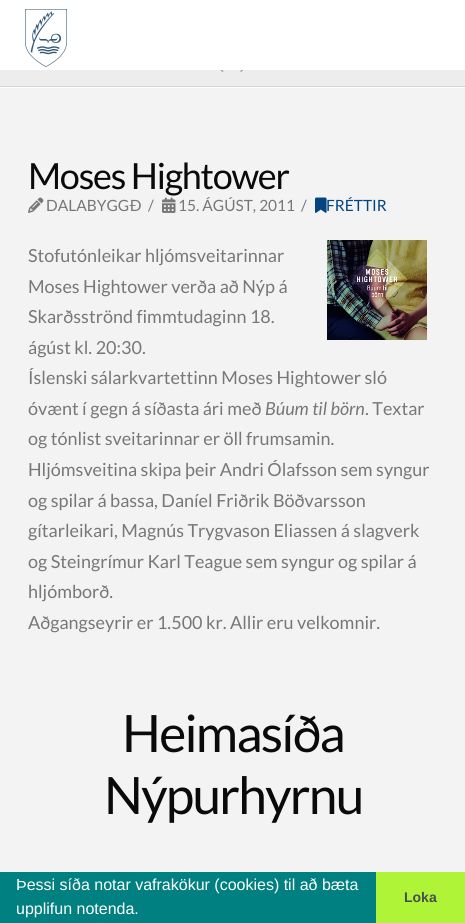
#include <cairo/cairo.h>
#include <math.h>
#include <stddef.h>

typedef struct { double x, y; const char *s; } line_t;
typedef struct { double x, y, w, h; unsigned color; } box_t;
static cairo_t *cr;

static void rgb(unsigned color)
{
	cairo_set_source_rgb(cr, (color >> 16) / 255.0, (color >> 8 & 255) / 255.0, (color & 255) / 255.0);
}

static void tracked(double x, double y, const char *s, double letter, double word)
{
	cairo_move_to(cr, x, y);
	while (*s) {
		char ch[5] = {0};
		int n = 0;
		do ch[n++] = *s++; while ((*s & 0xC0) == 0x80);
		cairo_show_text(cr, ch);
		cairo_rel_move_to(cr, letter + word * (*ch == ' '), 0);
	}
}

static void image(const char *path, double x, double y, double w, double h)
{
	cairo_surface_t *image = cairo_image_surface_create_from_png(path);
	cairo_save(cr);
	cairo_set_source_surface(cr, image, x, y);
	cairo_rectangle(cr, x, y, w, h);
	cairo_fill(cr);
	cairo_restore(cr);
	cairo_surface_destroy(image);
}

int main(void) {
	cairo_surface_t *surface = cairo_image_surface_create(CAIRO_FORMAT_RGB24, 465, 923);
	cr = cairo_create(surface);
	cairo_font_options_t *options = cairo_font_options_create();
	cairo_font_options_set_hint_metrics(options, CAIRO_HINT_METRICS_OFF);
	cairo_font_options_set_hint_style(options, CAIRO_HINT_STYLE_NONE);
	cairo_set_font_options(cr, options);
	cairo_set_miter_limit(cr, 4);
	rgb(0xf3f3f3);
	cairo_paint(cr);
	rgb(0xffffff);
	cairo_rectangle(cr, 0, 0, 465, 70);
	cairo_fill(cr);
	image("img/1.png", 25, 9, 42, 58);
	{
		static const box_t items[] = {
			{0, 87, 465, 1, 0xfcfcfc},
			{0, 70, 465, 16, 0xededed},
			{0, 86, 465, 1, 0xd5d5d5},
		};
		for (size_t i = 0; i < sizeof items / sizeof *items; i++) {
			rgb(items[i].color);
			cairo_rectangle(cr, items[i].x, items[i].y, items[i].w, items[i].h);
			cairo_fill(cr);
		}
	}
	image("img/2.png", 220, 70, 4, 2);
	image("img/3.png", 240, 70, 4, 2);
	image("img/4.png", 28, 197, 16, 16);
	image("img/5.png", 162, 197, 14, 16);
	image("img/6.png", 315, 197, 12, 16);
	image("img/7.png", 327, 240, 100, 100);
	rgb(0x008080);
	cairo_rectangle(cr, 0, 872, 376, 51);
	cairo_fill(cr);
	rgb(0xaff437);
	cairo_rectangle(cr, 376, 872, 89, 51);
	cairo_fill(cr);
	cairo_select_font_face(cr, "Lato", CAIRO_FONT_SLANT_NORMAL, CAIRO_FONT_WEIGHT_NORMAL);
	cairo_set_font_size(cr, 36);
	rgb(0x0a0a0a);
	tracked(28, 189, "Moses Hightower", -1.25, 0);
	cairo_set_font_size(cr, 15.5);
	rgb(0x777777);
	{
		static const line_t items[] = {
			{46, 211, "DALABYGGÐ"},
			{148, 211, "/"},
			{178, 211, "15. ÁGÚST, 2011"},
			{301, 211, "/"},
		};
		for (size_t i = 0; i < sizeof items / sizeof *items; i++) {
			cairo_move_to(cr, items[i].x, items[i].y);
			cairo_show_text(cr, items[i].s);
		}
	}
	rgb(0x034481);
	cairo_move_to(cr, 326, 211);
	cairo_show_text(cr, "FRÉTTIR");
	cairo_set_font_size(cr, 18);
	rgb(0x777777);
	{
		static const line_t items[] = {
			{28, 262, "Stofutónleikar hljómsveitarinnar"},
			{28, 293, "Moses Hightower verða að Nýp á"},
			{28, 323, "Skarðsströnd fimmtudaginn 18."},
			{28, 354, "ágúst kl. 20:30."},
			{28, 384, "Íslenski sálarkvartettinn Moses Hightower sló"},
			{28, 415, "óvænt í gegn á síðasta ári með"},
		};
		for (size_t i = 0; i < sizeof items / sizeof *items; i++) {
			cairo_move_to(cr, items[i].x, items[i].y);
			cairo_show_text(cr, items[i].s);
		}
	}
	cairo_select_font_face(cr, "Lato", CAIRO_FONT_SLANT_ITALIC, CAIRO_FONT_WEIGHT_NORMAL);
	cairo_move_to(cr, 265, 415);
	cairo_show_text(cr, "Búum til börn");
	cairo_select_font_face(cr, "Lato", CAIRO_FONT_SLANT_NORMAL, CAIRO_FONT_WEIGHT_NORMAL);
	{
		static const line_t items[] = {
			{365, 415, ". Textar"},
			{28, 445, "og tónlist sveitarinnar er öll frumsamin."},
			{28, 476, "Hljómsveitina skipa þeir Andri Ólafsson sem syngur"},
			{28, 507, "og spilar á bassa, Daníel Friðrik Böðvarsson"},
			{28, 537, "gítarleikari, Magnús Trygvason Eliassen á slagverk"},
			{28, 568, "og Steingrímur Karl Teague sem syngur og spilar á"},
			{28, 598, "hljómborð."},
			{28, 629, "Aðgangseyrir er 1.500 kr. Allir eru velkomnir."},
		};
		for (size_t i = 0; i < sizeof items / sizeof *items; i++) {
			cairo_move_to(cr, items[i].x, items[i].y);
			cairo_show_text(cr, items[i].s);
		}
	}
	cairo_set_font_size(cr, 51.5);
	rgb(0x0a0a0a);
	tracked(122, 752, "Heimasíða", -1.75, 0);
	tracked(104, 814, "Nýpurhyrnu", -1.75, 0);
	cairo_select_font_face(cr, "Liberation Sans", CAIRO_FONT_SLANT_NORMAL, CAIRO_FONT_WEIGHT_NORMAL);
	cairo_set_font_size(cr, 16);
	rgb(0xffffff);
	cairo_move_to(cr, 16, 890);
	cairo_show_text(cr, "Þessi síða notar vafrakökur (cookies) til að bæta");
	cairo_move_to(cr, 16, 914);
	cairo_show_text(cr, "upplifun notenda.");
	cairo_select_font_face(cr, "Liberation Sans", CAIRO_FONT_SLANT_NORMAL, CAIRO_FONT_WEIGHT_BOLD);
	cairo_set_font_size(cr, 14);
	rgb(0x464e51);
	cairo_move_to(cr, 404, 902);
	cairo_show_text(cr, "Loka");
	cairo_surface_write_to_png(surface, "page.png");
	cairo_font_options_destroy(options);
	cairo_destroy(cr);
	cairo_surface_destroy(surface);
	return 0;
}
